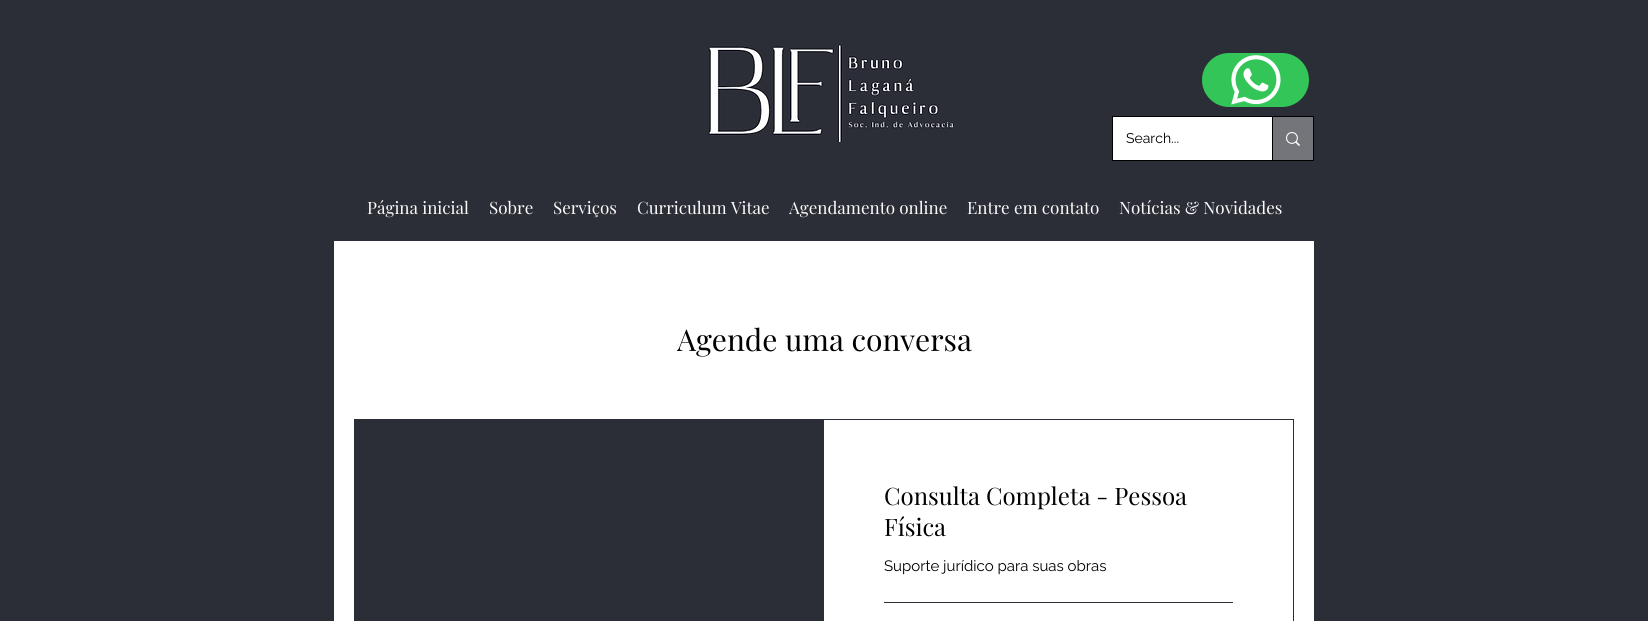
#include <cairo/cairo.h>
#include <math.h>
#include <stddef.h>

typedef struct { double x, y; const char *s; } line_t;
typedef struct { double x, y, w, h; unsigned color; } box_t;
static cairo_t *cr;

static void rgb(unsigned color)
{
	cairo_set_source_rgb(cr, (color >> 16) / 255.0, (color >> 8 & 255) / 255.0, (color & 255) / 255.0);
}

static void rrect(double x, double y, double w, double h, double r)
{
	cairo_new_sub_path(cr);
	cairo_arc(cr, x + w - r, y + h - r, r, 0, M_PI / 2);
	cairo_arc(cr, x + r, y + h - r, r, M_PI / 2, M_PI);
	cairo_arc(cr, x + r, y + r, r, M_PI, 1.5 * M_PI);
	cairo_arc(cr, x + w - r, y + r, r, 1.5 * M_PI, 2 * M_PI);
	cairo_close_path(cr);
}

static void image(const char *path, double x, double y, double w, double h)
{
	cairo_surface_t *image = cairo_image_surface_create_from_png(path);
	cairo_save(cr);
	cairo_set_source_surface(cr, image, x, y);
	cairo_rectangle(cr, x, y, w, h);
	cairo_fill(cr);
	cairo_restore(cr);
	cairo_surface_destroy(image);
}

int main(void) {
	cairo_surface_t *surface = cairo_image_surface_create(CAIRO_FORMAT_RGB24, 1648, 621);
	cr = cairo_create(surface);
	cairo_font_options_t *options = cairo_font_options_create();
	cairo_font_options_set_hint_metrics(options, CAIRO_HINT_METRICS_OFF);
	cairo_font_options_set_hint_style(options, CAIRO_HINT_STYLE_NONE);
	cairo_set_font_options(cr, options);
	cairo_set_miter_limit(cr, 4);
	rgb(0x2c2e37);
	cairo_paint(cr);
	image("img/1.png", 708, 43, 247, 100);
	rgb(0x33c558);
	rrect(1202, 53, 107, 54, 27);
	cairo_fill(cr);
	image("img/2.png", 1231, 55, 50, 50);
	cairo_rectangle(cr, 1112.5, 116.5, 201, 44);
	rgb(0x000000);
	cairo_set_line_width(cr, 1);
	cairo_stroke(cr);
	{
		static const box_t items[] = {
			{1113, 117, 159, 43, 0xffffff},
			{1273, 117, 40, 43, 0x74757b},
			{1272, 117, 1, 43, 0x000000},
		};
		for (size_t i = 0; i < sizeof items / sizeof *items; i++) {
			rgb(items[i].color);
			cairo_rectangle(cr, items[i].x, items[i].y, items[i].w, items[i].h);
			cairo_fill(cr);
		}
	}
	image("img/3.png", 1286, 132, 14, 14);
	rgb(0xffffff);
	cairo_rectangle(cr, 334, 241, 980, 380);
	cairo_fill(cr);
	cairo_rectangle(cr, 354.5, 419.5, 939, 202);
	rgb(0x2c2e37);
	cairo_stroke(cr);
	cairo_rectangle(cr, 355, 420, 469, 201);
	cairo_fill(cr);
	cairo_rectangle(cr, 884, 602, 349, 1);
	cairo_fill(cr);
	cairo_select_font_face(cr, "Raleway", CAIRO_FONT_SLANT_NORMAL, CAIRO_FONT_WEIGHT_NORMAL);
	cairo_set_font_size(cr, 14);
	rgb(0x000000);
	cairo_move_to(cr, 1126, 143);
	cairo_show_text(cr, "Search...");
	cairo_select_font_face(cr, "Playfair Display", CAIRO_FONT_SLANT_NORMAL, CAIRO_FONT_WEIGHT_NORMAL);
	cairo_set_font_size(cr, 17);
	rgb(0xfbfbfb);
	{
		static const line_t items[] = {
			{367, 214, "Página inicial"},
			{489, 214, "Sobre"},
			{553, 214, "Serviços"},
			{637, 214, "Curriculum Vitae"},
			{789, 214, "Agendamento online"},
			{967, 214, "Entre em contato"},
			{1119, 214, "Notícias & Novidades"},
		};
		for (size_t i = 0; i < sizeof items / sizeof *items; i++) {
			cairo_move_to(cr, items[i].x, items[i].y);
			cairo_show_text(cr, items[i].s);
		}
	}
	cairo_set_font_size(cr, 30);
	rgb(0x000000);
	cairo_move_to(cr, 677, 351);
	cairo_show_text(cr, "Agende uma conversa");
	cairo_set_font_size(cr, 24);
	cairo_move_to(cr, 884, 505);
	cairo_show_text(cr, "Consulta Completa - Pessoa");
	cairo_move_to(cr, 884, 536);
	cairo_show_text(cr, "Física");
	cairo_select_font_face(cr, "Raleway", CAIRO_FONT_SLANT_NORMAL, CAIRO_FONT_WEIGHT_NORMAL);
	cairo_set_font_size(cr, 15);
	cairo_move_to(cr, 884, 571);
	cairo_show_text(cr, "Suporte jurídico para suas obras");
	cairo_surface_write_to_png(surface, "page.png");
	cairo_font_options_destroy(options);
	cairo_destroy(cr);
	cairo_surface_destroy(surface);
	return 0;
}
